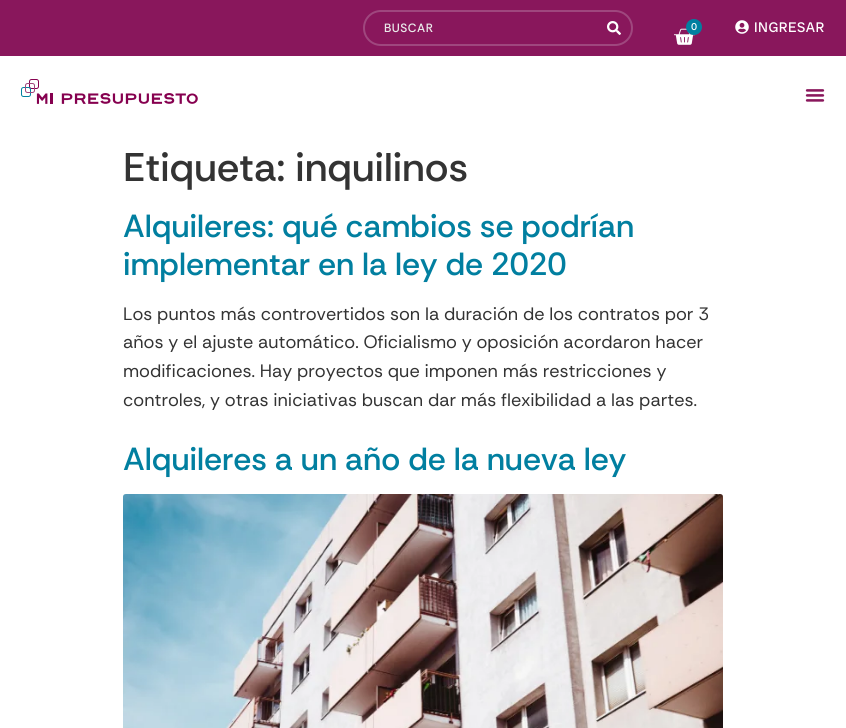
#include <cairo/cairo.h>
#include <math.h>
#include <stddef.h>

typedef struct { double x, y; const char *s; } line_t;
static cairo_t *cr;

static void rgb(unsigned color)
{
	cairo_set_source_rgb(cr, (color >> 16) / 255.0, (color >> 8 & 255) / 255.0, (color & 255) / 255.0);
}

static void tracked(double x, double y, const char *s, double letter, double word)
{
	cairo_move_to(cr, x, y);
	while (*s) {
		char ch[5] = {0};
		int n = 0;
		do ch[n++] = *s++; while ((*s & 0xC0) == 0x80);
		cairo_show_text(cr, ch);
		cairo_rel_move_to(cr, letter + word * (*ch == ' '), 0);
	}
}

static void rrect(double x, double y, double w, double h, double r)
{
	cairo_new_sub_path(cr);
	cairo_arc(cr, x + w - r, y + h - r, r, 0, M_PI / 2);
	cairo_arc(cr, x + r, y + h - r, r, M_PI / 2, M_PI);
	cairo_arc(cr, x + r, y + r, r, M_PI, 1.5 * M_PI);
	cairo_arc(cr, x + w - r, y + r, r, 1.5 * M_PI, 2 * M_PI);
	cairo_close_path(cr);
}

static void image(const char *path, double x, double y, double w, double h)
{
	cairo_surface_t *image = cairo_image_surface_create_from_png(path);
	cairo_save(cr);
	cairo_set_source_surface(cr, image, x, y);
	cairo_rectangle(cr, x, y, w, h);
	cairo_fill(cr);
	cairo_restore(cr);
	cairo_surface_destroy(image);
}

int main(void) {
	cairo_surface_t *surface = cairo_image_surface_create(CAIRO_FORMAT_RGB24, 846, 728);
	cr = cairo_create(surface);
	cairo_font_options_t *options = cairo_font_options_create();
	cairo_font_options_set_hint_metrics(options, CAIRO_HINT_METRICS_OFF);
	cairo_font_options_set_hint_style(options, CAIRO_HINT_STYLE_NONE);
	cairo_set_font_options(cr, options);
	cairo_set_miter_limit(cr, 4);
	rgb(0xffffff);
	cairo_paint(cr);
	rgb(0x89175c);
	cairo_rectangle(cr, 0, 0, 846, 56);
	cairo_fill(cr);
	rgb(0x9f477e);
	cairo_set_fill_rule(cr, CAIRO_FILL_RULE_EVEN_ODD);
	cairo_new_path(cr);
	cairo_move_to(cr, 381, 10);
	cairo_line_to(cr, 599, 10);
	cairo_line_to(cr, 599, 46);
	cairo_line_to(cr, 381, 46);
	cairo_curve_to(cr, 371, 46, 363, 38, 363, 28);
	cairo_curve_to(cr, 363, 18, 371, 10, 381, 10);
	cairo_close_path(cr);
	cairo_move_to(cr, 381, 12);
	cairo_line_to(cr, 599, 12);
	cairo_line_to(cr, 599, 44);
	cairo_line_to(cr, 381, 44);
	cairo_curve_to(cr, 372, 44, 365, 37, 365, 28);
	cairo_curve_to(cr, 365, 19, 372, 12, 381, 12);
	cairo_close_path(cr);
	cairo_fill(cr);
	cairo_new_path(cr);
	cairo_move_to(cr, 599, 10);
	cairo_line_to(cr, 615, 10);
	cairo_curve_to(cr, 625, 10, 633, 18, 633, 28);
	cairo_curve_to(cr, 633, 38, 625, 46, 615, 46);
	cairo_line_to(cr, 599, 46);
	cairo_close_path(cr);
	cairo_move_to(cr, 599, 12);
	cairo_line_to(cr, 615, 12);
	cairo_curve_to(cr, 624, 12, 631, 19, 631, 28);
	cairo_curve_to(cr, 631, 37, 624, 44, 615, 44);
	cairo_line_to(cr, 599, 44);
	cairo_close_path(cr);
	cairo_fill(cr);
	image("img/1.png", 607, 21, 14, 14);
	rgb(0x89175c);
	rrect(653, 16, 62, 42, 21);
	cairo_fill(cr);
	image("img/2.png", 674, 28, 21, 17);
	rgb(0x017fa0);
	cairo_arc(cr, 694, 27, 8, 0, 2 * M_PI);
	cairo_fill(cr);
	image("img/3.png", 735, 20, 14, 14);
	rgb(0xffffff);
	cairo_rectangle(cr, 665, 56, 38, 2);
	cairo_fill(cr);
	image("img/4.png", 21, 79, 177, 25);
	image("img/5.png", 805, 89, 20, 13);
	image("img/6.png", 123, 494, 600, 234);
	cairo_select_font_face(cr, "Rethink Sans Medium", CAIRO_FONT_SLANT_NORMAL, CAIRO_FONT_WEIGHT_NORMAL);
	cairo_set_font_size(cr, 12);
	rgb(0xeaeaea);
	tracked(384, 32, "BUSCAR", 0.5, 0);
	cairo_select_font_face(cr, "Radio Canada Big", CAIRO_FONT_SLANT_NORMAL, CAIRO_FONT_WEIGHT_NORMAL);
	cairo_set_font_size(cr, 10);
	rgb(0xffffff);
	tracked(691, 30, "0", 0.5, 0);
	cairo_set_font_size(cr, 14);
	tracked(754, 32, "INGRESAR", 0.5, 0);
	cairo_select_font_face(cr, "Rethink Sans Medium", CAIRO_FONT_SLANT_NORMAL, CAIRO_FONT_WEIGHT_NORMAL);
	cairo_set_font_size(cr, 40);
	rgb(0x333333);
	cairo_move_to(cr, 123, 181);
	cairo_show_text(cr, "Etiqueta: inquilinos");
	cairo_set_font_size(cr, 32);
	rgb(0x017fa0);
	cairo_move_to(cr, 123, 237);
	cairo_show_text(cr, "Alquileres: qué cambios se podrían");
	cairo_move_to(cr, 123, 275);
	cairo_show_text(cr, "implementar en la ley de 2020");
	cairo_select_font_face(cr, "Rethink Sans", CAIRO_FONT_SLANT_NORMAL, CAIRO_FONT_WEIGHT_NORMAL);
	cairo_set_font_size(cr, 18);
	rgb(0x333333);
	{
		static const line_t items[] = {
			{123, 320, "Los puntos más controvertidos son la duración de los contratos por 3"},
			{123, 348, "años y el ajuste automático. Oficialismo y oposición acordaron hacer"},
			{123, 377, "modificaciones. Hay proyectos que imponen más restricciones y"},
			{123, 406, "controles, y otras iniciativas buscan dar más flexibilidad a las partes."},
		};
		for (size_t i = 0; i < sizeof items / sizeof *items; i++) {
			cairo_move_to(cr, items[i].x, items[i].y);
			cairo_show_text(cr, items[i].s);
		}
	}
	cairo_select_font_face(cr, "Rethink Sans Medium", CAIRO_FONT_SLANT_NORMAL, CAIRO_FONT_WEIGHT_NORMAL);
	cairo_set_font_size(cr, 32);
	rgb(0x017fa0);
	cairo_move_to(cr, 123, 470);
	cairo_show_text(cr, "Alquileres a un año de la nueva ley");
	cairo_surface_write_to_png(surface, "page.png");
	cairo_font_options_destroy(options);
	cairo_destroy(cr);
	cairo_surface_destroy(surface);
	return 0;
}
